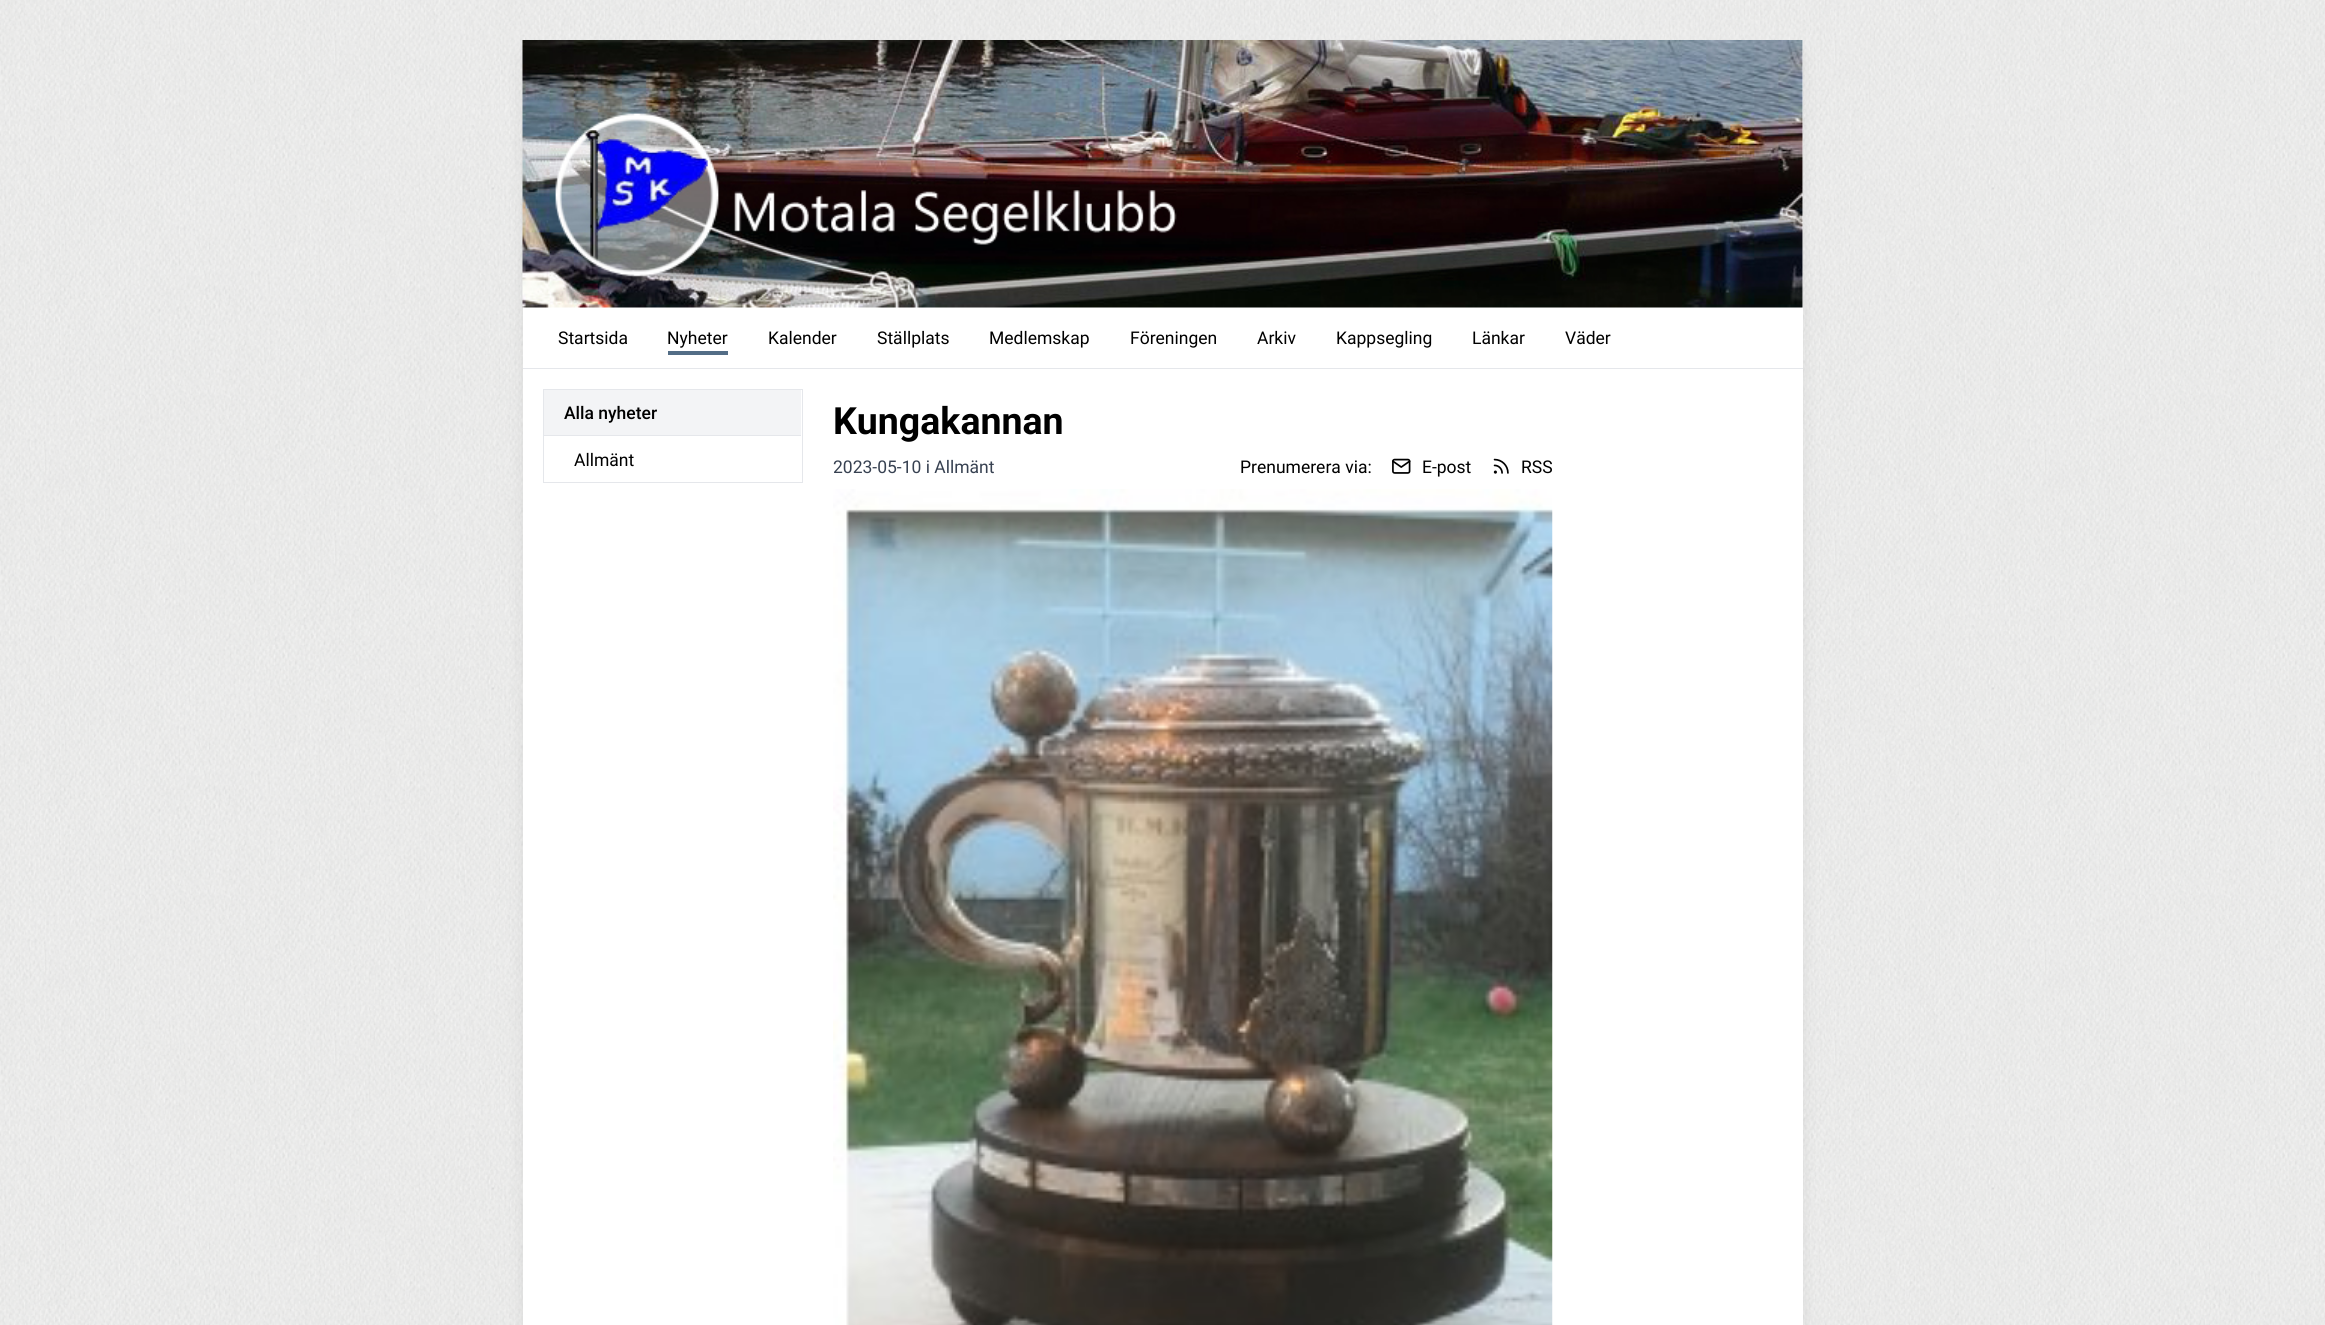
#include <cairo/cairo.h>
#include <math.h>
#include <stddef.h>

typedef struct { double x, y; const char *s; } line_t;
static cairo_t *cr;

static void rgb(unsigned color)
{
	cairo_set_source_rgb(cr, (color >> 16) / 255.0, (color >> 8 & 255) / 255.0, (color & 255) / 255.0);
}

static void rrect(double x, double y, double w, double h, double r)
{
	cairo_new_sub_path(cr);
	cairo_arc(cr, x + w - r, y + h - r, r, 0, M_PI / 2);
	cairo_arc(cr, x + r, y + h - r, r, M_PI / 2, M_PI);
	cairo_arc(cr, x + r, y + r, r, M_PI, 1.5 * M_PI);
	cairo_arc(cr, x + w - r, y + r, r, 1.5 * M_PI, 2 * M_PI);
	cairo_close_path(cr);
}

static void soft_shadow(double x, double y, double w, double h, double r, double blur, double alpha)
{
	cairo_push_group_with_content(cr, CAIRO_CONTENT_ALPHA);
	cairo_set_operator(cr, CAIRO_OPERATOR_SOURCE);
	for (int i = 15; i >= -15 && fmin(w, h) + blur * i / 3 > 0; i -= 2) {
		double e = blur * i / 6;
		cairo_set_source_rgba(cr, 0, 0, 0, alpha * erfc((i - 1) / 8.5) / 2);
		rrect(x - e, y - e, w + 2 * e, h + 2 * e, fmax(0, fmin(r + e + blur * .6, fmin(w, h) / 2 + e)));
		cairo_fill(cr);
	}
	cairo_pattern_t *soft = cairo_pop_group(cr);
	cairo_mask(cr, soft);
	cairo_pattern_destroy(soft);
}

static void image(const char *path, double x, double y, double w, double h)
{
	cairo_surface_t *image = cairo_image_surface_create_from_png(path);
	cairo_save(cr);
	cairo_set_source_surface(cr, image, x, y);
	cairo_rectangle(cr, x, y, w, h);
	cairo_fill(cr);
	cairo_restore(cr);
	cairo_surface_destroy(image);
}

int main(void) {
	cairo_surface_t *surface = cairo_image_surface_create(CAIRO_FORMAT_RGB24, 2325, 1325);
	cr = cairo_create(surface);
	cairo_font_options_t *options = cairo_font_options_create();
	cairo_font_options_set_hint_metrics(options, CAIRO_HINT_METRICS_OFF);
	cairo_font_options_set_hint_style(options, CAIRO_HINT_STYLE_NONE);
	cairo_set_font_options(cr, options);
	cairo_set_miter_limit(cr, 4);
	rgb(0xffffff);
	cairo_paint(cr);
	image("img/1.png", 0, 0, 2325, 1325);
	rgb(0x000000);
	soft_shadow(526, 56, 1273, 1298, 0, 9.5, 0.1);
	rgb(0xffffff);
	cairo_rectangle(cr, 523, 40, 1280, 1285);
	cairo_fill(cr);
	image("img/2.png", 522, 40, 1281, 268);
	rgb(0xe5e7eb);
	cairo_rectangle(cr, 523, 368, 1280, 1);
	cairo_fill(cr);
	rgb(0x536d86);
	cairo_rectangle(cr, 668, 351, 60, 4);
	cairo_fill(cr);
	cairo_rectangle(cr, 543.5, 389.5, 259, 93);
	rgb(0xe5e7eb);
	cairo_set_line_width(cr, 1);
	cairo_stroke(cr);
	rgb(0xf3f4f6);
	cairo_rectangle(cr, 544, 390, 257, 45);
	cairo_fill(cr);
	rgb(0xe5e7eb);
	cairo_rectangle(cr, 544, 435, 257, 1);
	cairo_fill(cr);
	image("img/3.png", 1392, 458, 19, 16);
	image("img/4.png", 1493, 458, 16, 16);
	image("img/5.png", 833, 489, 720, 836);
	cairo_select_font_face(cr, "Roboto", CAIRO_FONT_SLANT_NORMAL, CAIRO_FONT_WEIGHT_NORMAL);
	cairo_set_font_size(cr, 17.5);
	rgb(0x000000);
	{
		static const line_t items[] = {
			{558, 344, "Startsida"},
			{667, 344, "Nyheter"},
			{768, 344, "Kalender"},
			{877, 344, "Ställplats"},
			{989, 344, "Medlemskap"},
			{1130, 344, "Föreningen"},
			{1257, 344, "Arkiv"},
			{1336, 344, "Kappsegling"},
			{1472, 344, "Länkar"},
			{1565, 344, "Väder"},
		};
		for (size_t i = 0; i < sizeof items / sizeof *items; i++) {
			cairo_move_to(cr, items[i].x, items[i].y);
			cairo_show_text(cr, items[i].s);
		}
	}
	cairo_select_font_face(cr, "Roboto Medium", CAIRO_FONT_SLANT_NORMAL, CAIRO_FONT_WEIGHT_NORMAL);
	cairo_move_to(cr, 564, 419);
	cairo_show_text(cr, "Alla nyheter");
	cairo_select_font_face(cr, "Roboto", CAIRO_FONT_SLANT_NORMAL, CAIRO_FONT_WEIGHT_NORMAL);
	cairo_move_to(cr, 574, 466);
	cairo_show_text(cr, "Allmänt");
	cairo_select_font_face(cr, "Roboto", CAIRO_FONT_SLANT_NORMAL, CAIRO_FONT_WEIGHT_BOLD);
	cairo_set_font_size(cr, 37.5);
	cairo_move_to(cr, 833, 434);
	cairo_show_text(cr, "Kungakannan");
	cairo_select_font_face(cr, "Roboto", CAIRO_FONT_SLANT_NORMAL, CAIRO_FONT_WEIGHT_NORMAL);
	cairo_set_font_size(cr, 17.5);
	rgb(0x374151);
	cairo_move_to(cr, 833, 473);
	cairo_show_text(cr, "2023-05-10 i Allmänt");
	rgb(0x000000);
	{
		static const line_t items[] = {
			{1240, 473, "Prenumerera via:"},
			{1422, 473, "E-post"},
			{1521, 473, "RSS"},
		};
		for (size_t i = 0; i < sizeof items / sizeof *items; i++) {
			cairo_move_to(cr, items[i].x, items[i].y);
			cairo_show_text(cr, items[i].s);
		}
	}
	cairo_surface_write_to_png(surface, "page.png");
	cairo_font_options_destroy(options);
	cairo_destroy(cr);
	cairo_surface_destroy(surface);
	return 0;
}
